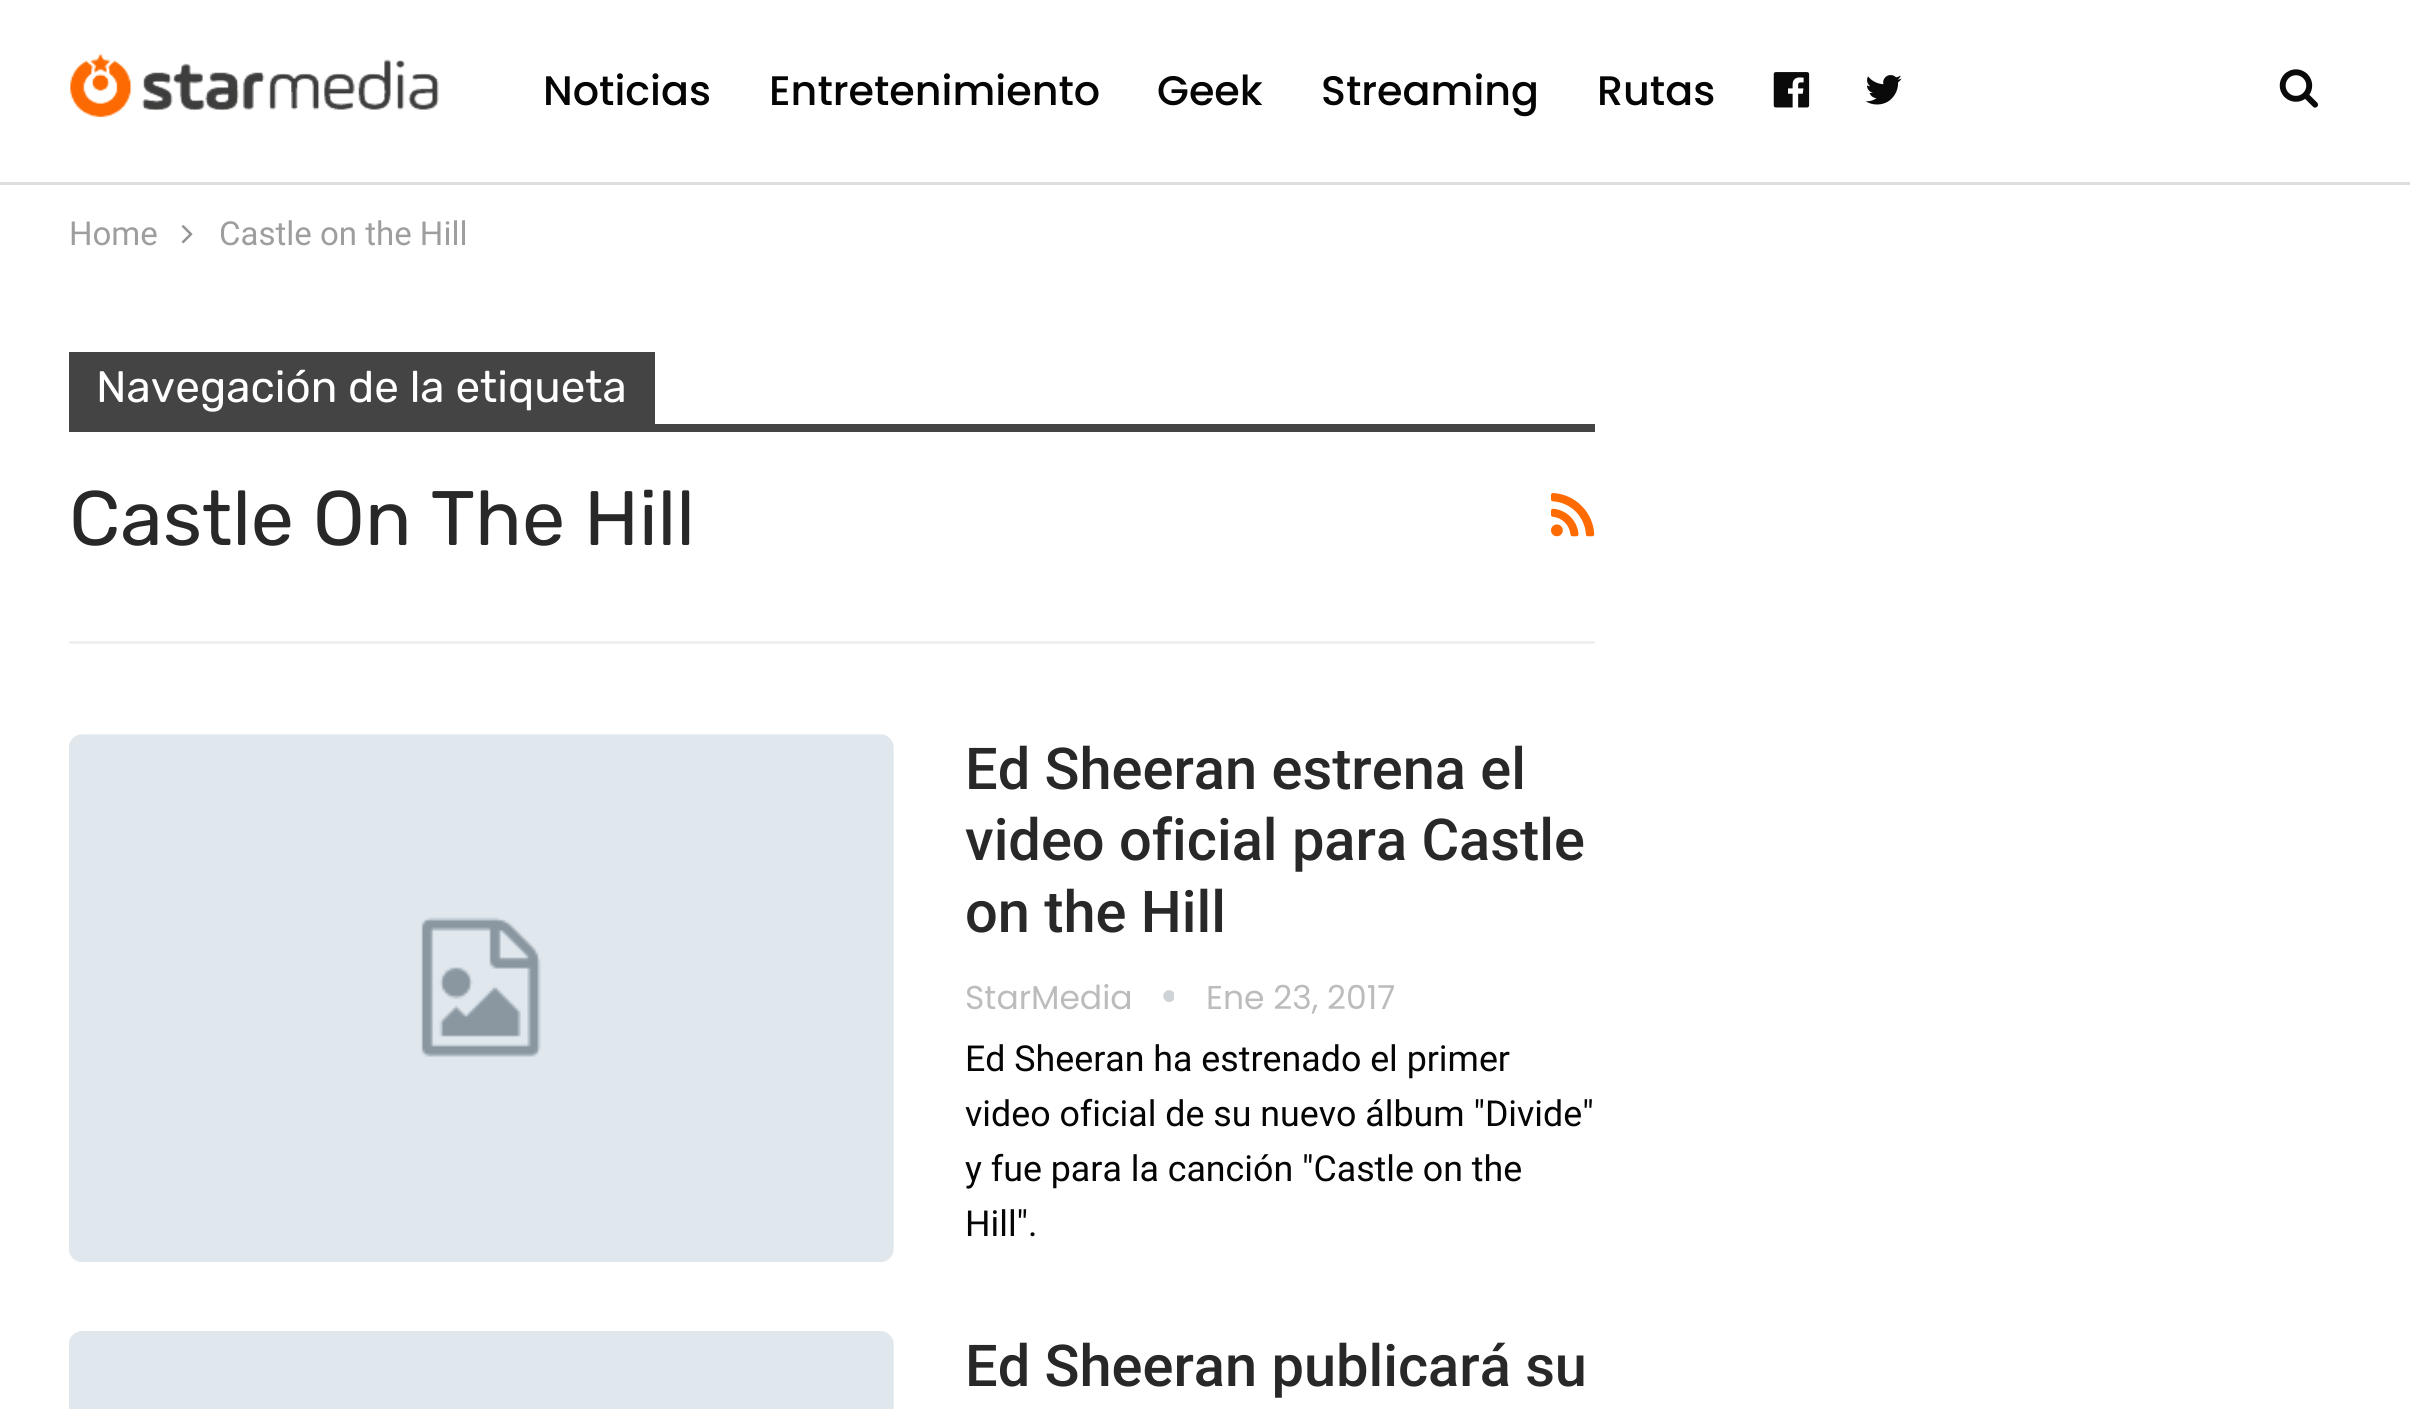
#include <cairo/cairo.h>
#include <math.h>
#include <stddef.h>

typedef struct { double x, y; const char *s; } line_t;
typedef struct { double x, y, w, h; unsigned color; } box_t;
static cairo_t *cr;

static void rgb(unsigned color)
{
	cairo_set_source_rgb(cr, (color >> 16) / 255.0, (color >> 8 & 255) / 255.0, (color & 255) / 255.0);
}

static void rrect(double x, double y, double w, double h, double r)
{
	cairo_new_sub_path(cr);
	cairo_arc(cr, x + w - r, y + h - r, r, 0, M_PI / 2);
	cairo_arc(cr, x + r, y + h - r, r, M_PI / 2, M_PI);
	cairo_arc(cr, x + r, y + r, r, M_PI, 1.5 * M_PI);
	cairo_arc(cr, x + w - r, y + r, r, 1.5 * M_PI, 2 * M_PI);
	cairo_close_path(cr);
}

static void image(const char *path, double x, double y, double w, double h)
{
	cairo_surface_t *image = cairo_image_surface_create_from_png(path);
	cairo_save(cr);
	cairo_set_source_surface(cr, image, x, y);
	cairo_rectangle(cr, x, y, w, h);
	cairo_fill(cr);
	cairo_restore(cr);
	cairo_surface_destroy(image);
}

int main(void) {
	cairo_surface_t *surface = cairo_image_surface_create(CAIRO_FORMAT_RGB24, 2410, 1409);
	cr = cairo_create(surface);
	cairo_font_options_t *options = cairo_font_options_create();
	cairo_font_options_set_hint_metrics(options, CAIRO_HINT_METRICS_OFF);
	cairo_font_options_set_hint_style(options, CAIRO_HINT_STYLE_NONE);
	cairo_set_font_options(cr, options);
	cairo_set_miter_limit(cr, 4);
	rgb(0xffffff);
	cairo_paint(cr);
	rgb(0xdedede);
	cairo_rectangle(cr, 0, 182, 2410, 3);
	cairo_fill(cr);
	image("img/1.png", 70, 53, 369, 65);
	image("img/2.png", 1773, 72, 37, 36);
	image("img/3.png", 1865, 75, 37, 30);
	image("img/4.png", 2279, 69, 39, 39);
	image("img/5.png", 181, 225, 12, 19);
	{
		static const box_t items[] = {
			{69, 641, 1526, 3, 0xf0f0f0},
			{69, 352, 586, 72, 0x444444},
			{69, 424, 1526, 8, 0x444444},
		};
		for (size_t i = 0; i < sizeof items / sizeof *items; i++) {
			rgb(items[i].color);
			cairo_rectangle(cr, items[i].x, items[i].y, items[i].w, items[i].h);
			cairo_fill(cr);
		}
	}
	image("img/6.png", 1551, 493, 44, 44);
	rgb(0xf5f5f5);
	rrect(69, 734, 825, 528, 14);
	cairo_fill(cr);
	image("img/7.png", 69, 734, 825, 528);
	image("img/8.png", 1163, 990, 11, 12);
	rrect(69, 1331, 825, 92, 14);
	cairo_fill(cr);
	image("img/9.png", 69, 1331, 825, 78);
	cairo_select_font_face(cr, "Poppins Medium", CAIRO_FONT_SLANT_NORMAL, CAIRO_FONT_WEIGHT_NORMAL);
	cairo_set_font_size(cr, 41.25);
	rgb(0x050505);
	{
		static const line_t items[] = {
			{543, 105, "Noticias"},
			{769, 105, "Entretenimiento"},
			{1157, 105, "Geek"},
			{1321, 105, "Streaming"},
			{1597, 105, "Rutas"},
		};
		for (size_t i = 0; i < sizeof items / sizeof *items; i++) {
			cairo_move_to(cr, items[i].x, items[i].y);
			cairo_show_text(cr, items[i].s);
		}
	}
	cairo_select_font_face(cr, "Roboto", CAIRO_FONT_SLANT_NORMAL, CAIRO_FONT_WEIGHT_NORMAL);
	cairo_set_font_size(cr, 33);
	rgb(0x9e9e9e);
	cairo_move_to(cr, 69, 245);
	cairo_show_text(cr, "Home");
	cairo_move_to(cr, 219, 245);
	cairo_show_text(cr, "Castle on the Hill");
	cairo_select_font_face(cr, "Rubik Light", CAIRO_FONT_SLANT_NORMAL, CAIRO_FONT_WEIGHT_NORMAL);
	cairo_set_font_size(cr, 44);
	rgb(0xffffff);
	cairo_move_to(cr, 96, 402);
	cairo_show_text(cr, "Navegación de la etiqueta");
	cairo_set_font_size(cr, 77);
	rgb(0x282828);
	cairo_move_to(cr, 69, 545);
	cairo_show_text(cr, "Castle On The Hill");
	cairo_select_font_face(cr, "Roboto Medium", CAIRO_FONT_SLANT_NORMAL, CAIRO_FONT_WEIGHT_NORMAL);
	cairo_set_font_size(cr, 57.75);
	{
		static const line_t items[] = {
			{965, 789, "Ed Sheeran estrena el"},
			{965, 860, "video oficial para Castle"},
			{965, 932, "on the Hill"},
		};
		for (size_t i = 0; i < sizeof items / sizeof *items; i++) {
			cairo_move_to(cr, items[i].x, items[i].y);
			cairo_show_text(cr, items[i].s);
		}
	}
	cairo_select_font_face(cr, "Poppins", CAIRO_FONT_SLANT_NORMAL, CAIRO_FONT_WEIGHT_NORMAL);
	cairo_set_font_size(cr, 33);
	rgb(0xbcbcbc);
	cairo_move_to(cr, 965, 1009);
	cairo_show_text(cr, "StarMedia");
	cairo_move_to(cr, 1206, 1009);
	cairo_show_text(cr, "Ene 23, 2017");
	cairo_select_font_face(cr, "Roboto", CAIRO_FONT_SLANT_NORMAL, CAIRO_FONT_WEIGHT_NORMAL);
	cairo_set_font_size(cr, 35.75);
	rgb(0x050505);
	{
		static const line_t items[] = {
			{965, 1071, "Ed Sheeran ha estrenado el primer"},
			{965, 1126, "video oficial de su nuevo álbum \"Divide\""},
			{965, 1181, "y fue para la canción \"Castle on the"},
			{965, 1236, "Hill\"."},
		};
		for (size_t i = 0; i < sizeof items / sizeof *items; i++) {
			cairo_move_to(cr, items[i].x, items[i].y);
			cairo_show_text(cr, items[i].s);
		}
	}
	cairo_select_font_face(cr, "Roboto Medium", CAIRO_FONT_SLANT_NORMAL, CAIRO_FONT_WEIGHT_NORMAL);
	cairo_set_font_size(cr, 57.75);
	rgb(0x282828);
	cairo_move_to(cr, 965, 1386);
	cairo_show_text(cr, "Ed Sheeran publicará su");
	cairo_surface_write_to_png(surface, "page.png");
	cairo_font_options_destroy(options);
	cairo_destroy(cr);
	cairo_surface_destroy(surface);
	return 0;
}
